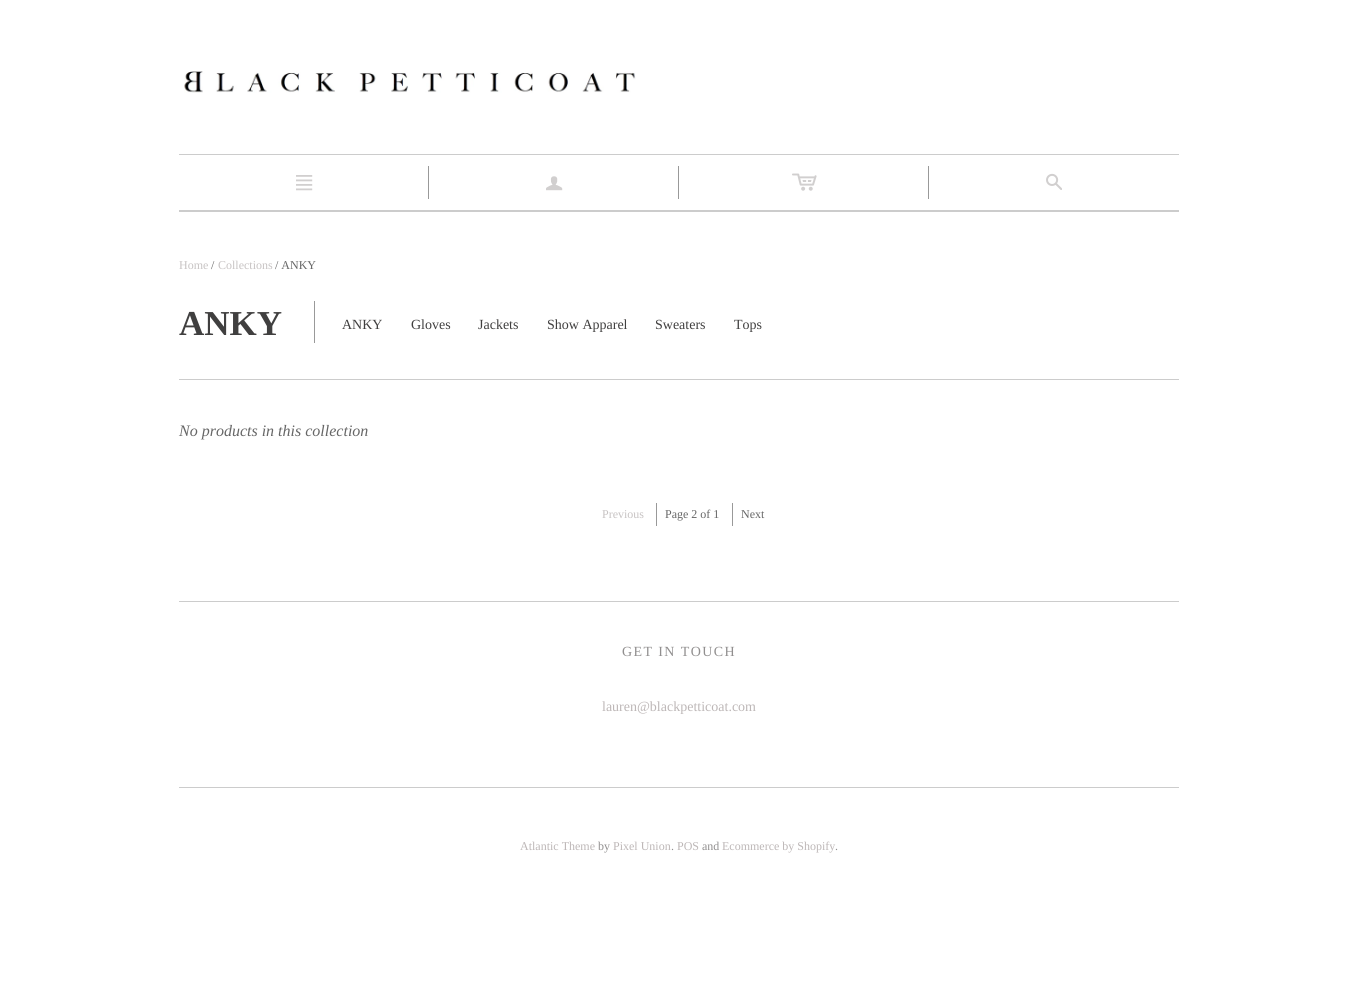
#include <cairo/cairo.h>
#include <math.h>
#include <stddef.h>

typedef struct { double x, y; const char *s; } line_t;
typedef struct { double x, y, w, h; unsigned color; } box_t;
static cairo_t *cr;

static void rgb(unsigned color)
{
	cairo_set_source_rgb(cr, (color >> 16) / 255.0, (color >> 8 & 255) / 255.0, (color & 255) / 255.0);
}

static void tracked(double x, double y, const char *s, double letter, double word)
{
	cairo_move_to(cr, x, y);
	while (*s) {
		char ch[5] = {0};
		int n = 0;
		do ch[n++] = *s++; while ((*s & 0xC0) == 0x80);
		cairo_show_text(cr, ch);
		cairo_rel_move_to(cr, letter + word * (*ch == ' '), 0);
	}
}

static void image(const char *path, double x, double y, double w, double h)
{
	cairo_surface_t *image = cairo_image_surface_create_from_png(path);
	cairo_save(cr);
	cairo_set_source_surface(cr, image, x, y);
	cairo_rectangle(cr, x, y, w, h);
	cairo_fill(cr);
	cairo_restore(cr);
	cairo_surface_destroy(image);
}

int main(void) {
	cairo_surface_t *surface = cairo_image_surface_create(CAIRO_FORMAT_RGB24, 1358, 1008);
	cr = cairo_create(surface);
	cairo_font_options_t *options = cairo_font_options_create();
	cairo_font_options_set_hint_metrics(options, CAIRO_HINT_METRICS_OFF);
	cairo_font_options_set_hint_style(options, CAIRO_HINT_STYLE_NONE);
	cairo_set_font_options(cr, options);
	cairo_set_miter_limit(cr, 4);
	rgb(0xffffff);
	cairo_paint(cr);
	image("img/1.png", 184, 71, 452, 22);
	rgb(0xcccccc);
	cairo_rectangle(cr, 179, 154, 1000, 1);
	cairo_fill(cr);
	cairo_rectangle(cr, 179, 210, 1000, 2);
	cairo_fill(cr);
	image("img/2.png", 296, 175, 17, 16);
	rgb(0x999999);
	cairo_rectangle(cr, 428, 166, 1, 33);
	cairo_fill(cr);
	image("img/3.png", 546, 176, 17, 15);
	cairo_rectangle(cr, 678, 166, 1, 33);
	cairo_fill(cr);
	image("img/4.png", 792, 173, 25, 18);
	cairo_rectangle(cr, 928, 166, 1, 33);
	cairo_fill(cr);
	image("img/5.png", 1046, 173, 16, 17);
	{
		static const box_t items[] = {
			{179, 379, 1000, 1, 0xcccccc},
			{314, 301, 1, 42, 0x999999},
			{656, 503, 1, 23, 0x999999},
			{732, 503, 1, 23, 0x999999},
			{179, 601, 1000, 1, 0xcccccc},
			{179, 787, 1000, 1, 0xcccccc},
		};
		for (size_t i = 0; i < sizeof items / sizeof *items; i++) {
			rgb(items[i].color);
			cairo_rectangle(cr, items[i].x, items[i].y, items[i].w, items[i].h);
			cairo_fill(cr);
		}
	}
	cairo_select_font_face(cr, "Liberation Serif", CAIRO_FONT_SLANT_NORMAL, CAIRO_FONT_WEIGHT_NORMAL);
	cairo_set_font_size(cr, 12);
	rgb(0xc7c3c3);
	cairo_move_to(cr, 179, 269);
	cairo_show_text(cr, "Home");
	rgb(0x666666);
	cairo_move_to(cr, 211, 269);
	cairo_show_text(cr, "/");
	rgb(0xc7c3c3);
	cairo_move_to(cr, 218, 269);
	cairo_show_text(cr, "Collections");
	rgb(0x666666);
	cairo_move_to(cr, 275, 269);
	cairo_show_text(cr, "/ ANKY");
	cairo_select_font_face(cr, "Liberation Serif", CAIRO_FONT_SLANT_NORMAL, CAIRO_FONT_WEIGHT_BOLD);
	cairo_set_font_size(cr, 35);
	rgb(0x403f3f);
	cairo_move_to(cr, 179, 335);
	cairo_show_text(cr, "ANKY");
	cairo_select_font_face(cr, "Liberation Serif", CAIRO_FONT_SLANT_NORMAL, CAIRO_FONT_WEIGHT_NORMAL);
	cairo_set_font_size(cr, 14);
	{
		static const line_t items[] = {
			{342, 329, "ANKY"},
			{411, 329, "Gloves"},
			{478, 329, "Jackets"},
			{547, 329, "Show Apparel"},
			{655, 329, "Sweaters"},
			{734, 329, "Tops"},
		};
		for (size_t i = 0; i < sizeof items / sizeof *items; i++) {
			cairo_move_to(cr, items[i].x, items[i].y);
			cairo_show_text(cr, items[i].s);
		}
	}
	cairo_select_font_face(cr, "Liberation Serif", CAIRO_FONT_SLANT_ITALIC, CAIRO_FONT_WEIGHT_NORMAL);
	cairo_set_font_size(cr, 16);
	rgb(0x666666);
	cairo_move_to(cr, 179, 436);
	cairo_show_text(cr, "No products in this collection");
	cairo_select_font_face(cr, "Liberation Serif", CAIRO_FONT_SLANT_NORMAL, CAIRO_FONT_WEIGHT_NORMAL);
	cairo_set_font_size(cr, 12);
	rgb(0xc7c3c3);
	cairo_move_to(cr, 602, 518);
	cairo_show_text(cr, "Previous");
	rgb(0x666666);
	cairo_move_to(cr, 665, 518);
	cairo_show_text(cr, "Page 2 of 1");
	cairo_move_to(cr, 741, 518);
	cairo_show_text(cr, "Next");
	cairo_set_font_size(cr, 14);
	rgb(0x918f8f);
	tracked(622, 656, "GET IN TOUCH", 1.4, 0);
	rgb(0xbdb7b7);
	cairo_move_to(cr, 602, 711);
	cairo_show_text(cr, "lauren@blackpetticoat.com");
	cairo_set_font_size(cr, 12);
	cairo_move_to(cr, 520, 850);
	cairo_show_text(cr, "Atlantic Theme");
	rgb(0x918f8f);
	cairo_move_to(cr, 598, 850);
	cairo_show_text(cr, "by");
	rgb(0xbdb7b7);
	cairo_move_to(cr, 613, 850);
	cairo_show_text(cr, "Pixel Union");
	rgb(0x918f8f);
	cairo_move_to(cr, 671, 850);
	cairo_show_text(cr, ".");
	rgb(0xbdb7b7);
	cairo_move_to(cr, 677, 850);
	cairo_show_text(cr, "POS");
	rgb(0x918f8f);
	cairo_move_to(cr, 702, 850);
	cairo_show_text(cr, "and");
	rgb(0xbdb7b7);
	cairo_move_to(cr, 722, 850);
	cairo_show_text(cr, "Ecommerce by Shopify");
	rgb(0x918f8f);
	cairo_move_to(cr, 835, 850);
	cairo_show_text(cr, ".");
	cairo_surface_write_to_png(surface, "page.png");
	cairo_font_options_destroy(options);
	cairo_destroy(cr);
	cairo_surface_destroy(surface);
	return 0;
}
